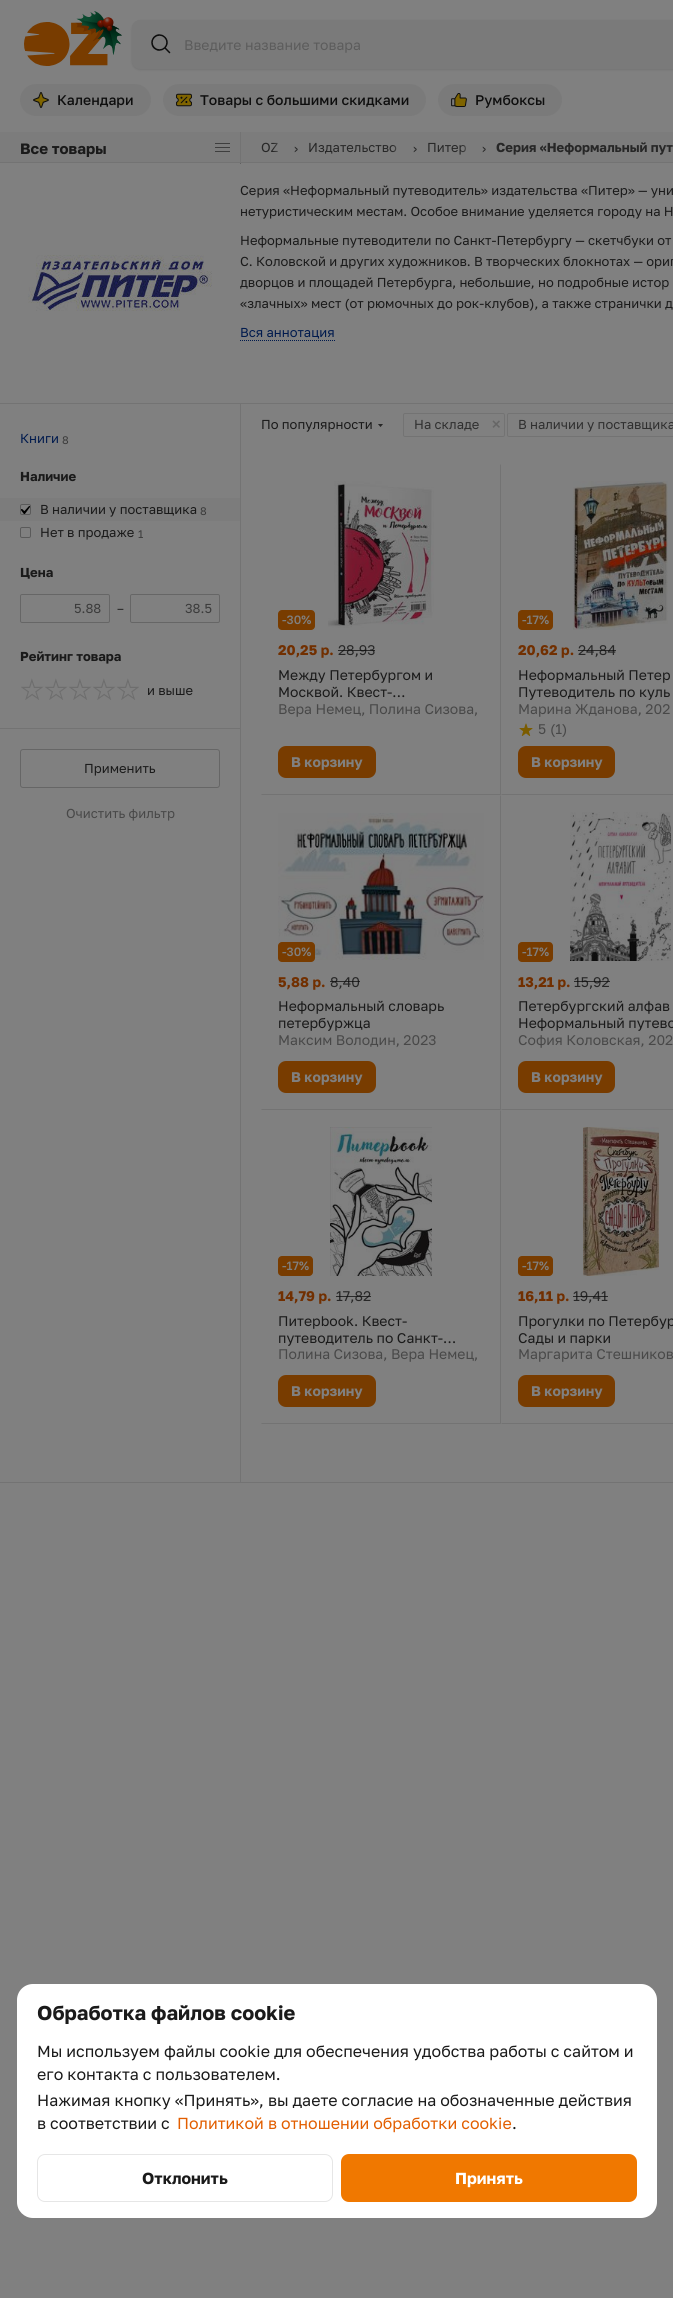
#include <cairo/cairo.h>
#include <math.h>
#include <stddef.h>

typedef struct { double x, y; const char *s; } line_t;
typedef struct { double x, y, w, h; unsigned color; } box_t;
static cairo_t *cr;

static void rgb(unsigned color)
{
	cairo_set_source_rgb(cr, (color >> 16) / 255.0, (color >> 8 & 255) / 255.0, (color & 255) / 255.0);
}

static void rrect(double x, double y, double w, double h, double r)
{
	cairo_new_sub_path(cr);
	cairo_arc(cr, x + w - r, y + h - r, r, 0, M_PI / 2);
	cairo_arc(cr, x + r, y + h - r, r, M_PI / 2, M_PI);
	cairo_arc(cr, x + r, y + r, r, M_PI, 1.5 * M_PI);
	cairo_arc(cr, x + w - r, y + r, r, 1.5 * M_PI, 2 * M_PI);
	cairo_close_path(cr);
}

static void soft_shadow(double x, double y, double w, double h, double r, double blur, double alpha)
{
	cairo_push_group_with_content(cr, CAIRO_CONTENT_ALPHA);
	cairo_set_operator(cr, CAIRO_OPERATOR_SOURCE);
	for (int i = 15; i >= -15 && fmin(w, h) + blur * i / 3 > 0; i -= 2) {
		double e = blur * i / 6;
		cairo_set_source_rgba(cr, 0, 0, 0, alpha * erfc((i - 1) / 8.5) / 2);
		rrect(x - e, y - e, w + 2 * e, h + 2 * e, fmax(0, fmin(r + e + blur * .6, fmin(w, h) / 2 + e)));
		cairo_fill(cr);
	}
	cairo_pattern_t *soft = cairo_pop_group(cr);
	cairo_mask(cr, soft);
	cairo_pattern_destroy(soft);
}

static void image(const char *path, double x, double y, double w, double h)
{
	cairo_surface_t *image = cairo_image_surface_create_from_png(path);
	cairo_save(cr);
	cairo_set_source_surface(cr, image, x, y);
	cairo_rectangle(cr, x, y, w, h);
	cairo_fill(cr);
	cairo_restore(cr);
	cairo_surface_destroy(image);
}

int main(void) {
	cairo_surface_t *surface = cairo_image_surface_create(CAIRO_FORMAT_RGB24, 673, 2298);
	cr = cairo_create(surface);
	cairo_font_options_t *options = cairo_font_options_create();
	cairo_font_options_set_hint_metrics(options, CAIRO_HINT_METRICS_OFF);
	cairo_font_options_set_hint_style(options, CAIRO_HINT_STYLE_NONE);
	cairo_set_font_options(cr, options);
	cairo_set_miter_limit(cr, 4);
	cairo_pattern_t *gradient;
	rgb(0x808080);
	cairo_paint(cr);
	image("img/1.png", 24, 11, 98, 55);
	rgb(0x000000);
	soft_shadow(132, 21, 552, 49, 8, 1, 0.1);
	rgb(0x7a7a7a);
	rrect(132, 20, 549, 49, 8);
	cairo_fill(cr);
	image("img/2.png", 151, 34, 20, 20);
	rrect(20, 84, 131, 32, 16);
	cairo_fill(cr);
	image("img/3.png", 33, 92, 16, 16);
	rrect(163, 84, 263, 32, 16);
	cairo_fill(cr);
	image("img/4.png", 176, 93, 16, 14);
	rrect(438, 84, 124, 32, 16);
	cairo_fill(cr);
	image("img/5.png", 451, 93, 16, 14);
	rgb(0x7c7c7c);
	cairo_rectangle(cr, 0, 132, 240, 30);
	cairo_fill(cr);
	image("img/6.png", 215, 143, 15, 9);
	{
		static const box_t items[] = {
			{240, 163, 1, 1, 0x606060},
			{241, 132, 432, 30, 0x7c7c7c},
			{0, 162, 673, 1, 0x737373},
			{240, 132, 1, 31, 0x737373},
		};
		for (size_t i = 0; i < sizeof items / sizeof *items; i++) {
			rgb(items[i].color);
			cairo_rectangle(cr, items[i].x, items[i].y, items[i].w, items[i].h);
			cairo_fill(cr);
		}
	}
	image("img/7.png", 28, 255, 184, 56);
	cairo_new_path(cr);
	cairo_move_to(cr, 240, 340.5);
	cairo_line_to(cr, 335, 340.5);
	rgb(0x001a4d);
	cairo_set_line_width(cr, 1);
	cairo_set_dash(cr, (double[]){1, 1}, 2, 0);
	cairo_stroke(cr);
	{
		static const box_t items[] = {
			{0, 403, 673, 1, 0x737373},
			{0, 1482, 673, 1, 0x737373},
			{240, 404, 1, 1078, 0x737373},
			{0, 498, 240, 23, 0x7c7c7c},
		};
		for (size_t i = 0; i < sizeof items / sizeof *items; i++) {
			rgb(items[i].color);
			cairo_rectangle(cr, items[i].x, items[i].y, items[i].w, items[i].h);
			cairo_fill(cr);
		}
	}
	rgb(0x808080);
	rrect(20.5, 504.5, 10, 10, 1.5);
	cairo_fill_preserve(cr);
	rgb(0x5a5a5a);
	cairo_set_dash(cr, NULL, 0, 0);
	cairo_stroke(cr);
	image("img/8.png", 21, 506, 9, 8);
	rrect(20.5, 527.5, 10, 10, 1.5);
	cairo_stroke(cr);
	rrect(20.5, 594.5, 89, 28, 1.5);
	rgb(0x666666);
	cairo_stroke(cr);
	rrect(130.5, 594.5, 89, 28, 1.5);
	cairo_stroke(cr);
	image("img/9.png", 21, 678, 118, 22);
	rgb(0x737373);
	cairo_rectangle(cr, 0, 728, 240, 1);
	cairo_fill(cr);
	rrect(20.5, 749.5, 199, 38, 2.5);
	rgb(0x666666);
	cairo_stroke(cr);
	image("img/10.png", 378, 424, 5, 3);
	rrect(403.5, 413.5, 101, 23, 1.5);
	rgb(0x737373);
	cairo_stroke(cr);
	rrect(507.5, 413.5, 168, 23, 1.5);
	cairo_stroke(cr);
	cairo_new_path(cr);
	cairo_move_to(cr, 501, 464);
	cairo_line_to(cr, 501, 795);
	cairo_line_to(cr, 500, 794);
	cairo_line_to(cr, 500, 465);
	cairo_close_path(cr);
	cairo_fill(cr);
	cairo_set_source_rgba(cr, 0, 0, 0, 0.1);
	cairo_new_path(cr);
	cairo_move_to(cr, 501, 795);
	cairo_line_to(cr, 261, 795);
	cairo_line_to(cr, 262, 794);
	cairo_line_to(cr, 500, 794);
	cairo_close_path(cr);
	cairo_fill(cr);
	rgb(0x783c00);
	rrect(278, 610, 37, 20, 4);
	cairo_fill(cr);
	image("img/11.png", 328, 481, 106, 147);
	rrect(278, 746, 98, 32, 8);
	cairo_fill(cr);
	rgb(0x737373);
	cairo_new_path(cr);
	cairo_move_to(cr, 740, 795);
	cairo_line_to(cr, 501, 795);
	cairo_line_to(cr, 502, 794);
	cairo_line_to(cr, 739, 794);
	cairo_close_path(cr);
	cairo_fill(cr);
	rgb(0x783c00);
	rrect(518, 610, 35, 20, 4);
	cairo_fill(cr);
	image("img/12.png", 573, 481, 95, 149);
	image("img/13.png", 519, 723, 14, 13);
	rrect(518, 746, 97, 32, 8);
	cairo_fill(cr);
	rgb(0x737373);
	cairo_new_path(cr);
	cairo_move_to(cr, 501, 795);
	cairo_line_to(cr, 501, 1110);
	cairo_line_to(cr, 500, 1109);
	cairo_line_to(cr, 500, 796);
	cairo_close_path(cr);
	cairo_fill(cr);
	cairo_set_source_rgba(cr, 0, 0, 0, 0.1);
	cairo_new_path(cr);
	cairo_move_to(cr, 501, 1110);
	cairo_line_to(cr, 261, 1110);
	cairo_line_to(cr, 262, 1109);
	cairo_line_to(cr, 500, 1109);
	cairo_close_path(cr);
	cairo_fill(cr);
	image("img/14.png", 278, 813, 206, 147);
	rgb(0x783c00);
	rrect(278, 942, 37, 20, 4);
	cairo_fill(cr);
	rrect(278, 1061, 98, 32, 8);
	cairo_fill(cr);
	rgb(0x737373);
	cairo_new_path(cr);
	cairo_move_to(cr, 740, 1110);
	cairo_line_to(cr, 501, 1110);
	cairo_line_to(cr, 502, 1109);
	cairo_line_to(cr, 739, 1109);
	cairo_close_path(cr);
	cairo_fill(cr);
	rgb(0x783c00);
	rrect(518, 942, 35, 20, 4);
	cairo_fill(cr);
	image("img/15.png", 570, 812, 101, 149);
	rrect(518, 1061, 97, 32, 8);
	cairo_fill(cr);
	rgb(0x737373);
	cairo_new_path(cr);
	cairo_move_to(cr, 501, 1110);
	cairo_line_to(cr, 501, 1424);
	cairo_line_to(cr, 500, 1423);
	cairo_line_to(cr, 500, 1111);
	cairo_close_path(cr);
	cairo_fill(cr);
	cairo_set_source_rgba(cr, 0, 0, 0, 0.1);
	cairo_new_path(cr);
	cairo_move_to(cr, 501, 1424);
	cairo_line_to(cr, 261, 1424);
	cairo_line_to(cr, 262, 1423);
	cairo_line_to(cr, 500, 1423);
	cairo_close_path(cr);
	cairo_fill(cr);
	rgb(0x783c00);
	rrect(278, 1256, 35, 20, 4);
	cairo_fill(cr);
	image("img/16.png", 330, 1127, 102, 149);
	rrect(278, 1375, 98, 32, 8);
	cairo_fill(cr);
	rgb(0x737373);
	cairo_new_path(cr);
	cairo_move_to(cr, 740, 1424);
	cairo_line_to(cr, 501, 1424);
	cairo_line_to(cr, 502, 1423);
	cairo_line_to(cr, 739, 1423);
	cairo_close_path(cr);
	cairo_fill(cr);
	rgb(0x783c00);
	rrect(518, 1256, 35, 20, 4);
	cairo_fill(cr);
	image("img/17.png", 583, 1127, 76, 149);
	rrect(518, 1375, 97, 32, 8);
	cairo_fill(cr);
	rgb(0xffffff);
	rrect(17, 1984, 640, 234, 16);
	cairo_fill(cr);
	rrect(37.5, 2154.5, 295, 47, 7.5);
	rgb(0xe6e6e6);
	cairo_stroke(cr);
	rgb(0xf07800);
	rrect(341, 2154, 296, 48, 8);
	cairo_fill(cr);
	cairo_select_font_face(cr, "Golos", CAIRO_FONT_SLANT_NORMAL, CAIRO_FONT_WEIGHT_NORMAL);
	cairo_set_font_size(cr, 14);
	rgb(0x5c5c5c);
	cairo_move_to(cr, 184, 50);
	cairo_show_text(cr, "Введите название товара");
	cairo_select_font_face(cr, "Golos Medium", CAIRO_FONT_SLANT_NORMAL, CAIRO_FONT_WEIGHT_NORMAL);
	rgb(0x0e0e0e);
	{
		static const line_t items[] = {
			{57, 105, "Календари"},
			{200, 105, "Товары с большими скидками"},
			{475, 105, "Румбоксы"},
		};
		for (size_t i = 0; i < sizeof items / sizeof *items; i++) {
			cairo_move_to(cr, items[i].x, items[i].y);
			cairo_show_text(cr, items[i].s);
		}
	}
	cairo_select_font_face(cr, "Golos", CAIRO_FONT_SLANT_NORMAL, CAIRO_FONT_WEIGHT_BOLD);
	cairo_set_font_size(cr, 15);
	rgb(0x1a1a1a);
	cairo_move_to(cr, 20, 154);
	cairo_show_text(cr, "Все товары");
	cairo_select_font_face(cr, "Golos", CAIRO_FONT_SLANT_NORMAL, CAIRO_FONT_WEIGHT_NORMAL);
	cairo_set_font_size(cr, 13);
	rgb(0x272727);
	cairo_move_to(cr, 261, 152);
	cairo_show_text(cr, "OZ");
	gradient = cairo_pattern_create_linear(273, 148, 298, 148);
	cairo_pattern_add_color_stop_rgba(gradient, 0, 0.486, 0.486, 0.486, 0);
	cairo_pattern_add_color_stop_rgba(gradient, 0.5, 0.486, 0.486, 0.486, 1);
	cairo_set_source(cr, gradient);
	cairo_pattern_destroy(gradient);
	cairo_rectangle(cr, 273, 142, 5, 10);
	cairo_fill(cr);
	rgb(0x272727);
	cairo_move_to(cr, 294, 153);
	cairo_show_text(cr, "›");
	cairo_move_to(cr, 308, 152);
	cairo_show_text(cr, "Издательство");
	gradient = cairo_pattern_create_linear(392, 148, 417, 148);
	cairo_pattern_add_color_stop_rgba(gradient, 0, 0.486, 0.486, 0.486, 0);
	cairo_pattern_add_color_stop_rgba(gradient, 0.5, 0.486, 0.486, 0.486, 1);
	cairo_set_source(cr, gradient);
	cairo_pattern_destroy(gradient);
	cairo_rectangle(cr, 392, 145, 5, 7);
	cairo_fill(cr);
	rgb(0x272727);
	cairo_move_to(cr, 413, 153);
	cairo_show_text(cr, "›");
	cairo_save(cr);
	cairo_rectangle(cr, 427, 139, 39, 17);
	cairo_clip(cr);
	cairo_move_to(cr, 427, 152);
	cairo_show_text(cr, "Питер");
	cairo_restore(cr);
	gradient = cairo_pattern_create_linear(461, 148, 486, 148);
	cairo_pattern_add_color_stop_rgba(gradient, 0, 0.486, 0.486, 0.486, 0);
	cairo_pattern_add_color_stop_rgba(gradient, 0.5, 0.486, 0.486, 0.486, 1);
	cairo_set_source(cr, gradient);
	cairo_pattern_destroy(gradient);
	cairo_rectangle(cr, 461, 145, 5, 7);
	cairo_fill(cr);
	rgb(0x272727);
	cairo_move_to(cr, 482, 153);
	cairo_show_text(cr, "›");
	cairo_select_font_face(cr, "Golos", CAIRO_FONT_SLANT_NORMAL, CAIRO_FONT_WEIGHT_BOLD);
	cairo_move_to(cr, 496, 152);
	cairo_show_text(cr, "Серия «Неформальный пут");
	cairo_select_font_face(cr, "Golos", CAIRO_FONT_SLANT_NORMAL, CAIRO_FONT_WEIGHT_NORMAL);
	rgb(0x1a1a1a);
	{
		static const line_t items[] = {
			{240, 195, "Серия «Неформальный путеводитель» издательства «Питер» — уни"},
			{240, 216, "нетуристическим местам. Особое внимание уделяется городу на Н"},
			{240, 245, "Неформальные путеводители по Санкт-Петербургу — скетчбуки от"},
			{240, 266, "С. Коловской и других художников. В творческих блокнотах — ориг"},
			{240, 287, "дворцов и площадей Петербурга, небольшие, но подробные истор"},
			{240, 308, "«злачных» мест (от рюмочных до рок-клубов), а также странички д"},
		};
		for (size_t i = 0; i < sizeof items / sizeof *items; i++) {
			cairo_move_to(cr, items[i].x, items[i].y);
			cairo_show_text(cr, items[i].s);
		}
	}
	rgb(0x001a4d);
	cairo_move_to(cr, 240, 337);
	cairo_show_text(cr, "Вся аннотация");
	cairo_move_to(cr, 20, 443);
	cairo_show_text(cr, "Книги");
	cairo_set_font_size(cr, 11);
	rgb(0x3b3b3b);
	cairo_move_to(cr, 62, 444);
	cairo_show_text(cr, "8");
	cairo_select_font_face(cr, "Golos", CAIRO_FONT_SLANT_NORMAL, CAIRO_FONT_WEIGHT_BOLD);
	cairo_set_font_size(cr, 13);
	rgb(0x1a1a1a);
	cairo_move_to(cr, 20, 481);
	cairo_show_text(cr, "Наличие");
	cairo_select_font_face(cr, "Golos", CAIRO_FONT_SLANT_NORMAL, CAIRO_FONT_WEIGHT_NORMAL);
	cairo_move_to(cr, 40, 514);
	cairo_show_text(cr, "В наличии у поставщика");
	cairo_set_font_size(cr, 11);
	rgb(0x3b3b3b);
	cairo_move_to(cr, 200, 515);
	cairo_show_text(cr, "8");
	cairo_set_font_size(cr, 13);
	rgb(0x1a1a1a);
	cairo_move_to(cr, 40, 537);
	cairo_show_text(cr, "Нет в продаже");
	cairo_set_font_size(cr, 11);
	rgb(0x3b3b3b);
	cairo_move_to(cr, 138, 538);
	cairo_show_text(cr, "1");
	cairo_select_font_face(cr, "Golos", CAIRO_FONT_SLANT_NORMAL, CAIRO_FONT_WEIGHT_BOLD);
	cairo_set_font_size(cr, 13);
	rgb(0x1a1a1a);
	cairo_move_to(cr, 20, 577);
	cairo_show_text(cr, "Цена");
	cairo_select_font_face(cr, "Golos", CAIRO_FONT_SLANT_NORMAL, CAIRO_FONT_WEIGHT_NORMAL);
	rgb(0x3b3b3b);
	cairo_move_to(cr, 74, 613);
	cairo_show_text(cr, "5.88");
	rgb(0x272727);
	cairo_move_to(cr, 117, 613);
	cairo_show_text(cr, "–");
	rgb(0x3b3b3b);
	cairo_move_to(cr, 185, 613);
	cairo_show_text(cr, "38.5");
	cairo_select_font_face(cr, "Golos", CAIRO_FONT_SLANT_NORMAL, CAIRO_FONT_WEIGHT_BOLD);
	rgb(0x1a1a1a);
	cairo_move_to(cr, 20, 661);
	cairo_show_text(cr, "Рейтинг товара");
	cairo_select_font_face(cr, "Golos", CAIRO_FONT_SLANT_NORMAL, CAIRO_FONT_WEIGHT_NORMAL);
	cairo_move_to(cr, 147, 695);
	cairo_show_text(cr, "и выше");
	cairo_move_to(cr, 84, 773);
	cairo_show_text(cr, "Применить");
	rgb(0x484848);
	cairo_move_to(cr, 66, 818);
	cairo_show_text(cr, "Очистить фильтр");
	rgb(0x1a1a1a);
	cairo_move_to(cr, 261, 429);
	cairo_show_text(cr, "По популярности");
	rgb(0x2f2f2f);
	cairo_move_to(cr, 414, 429);
	cairo_show_text(cr, "На складе");
	cairo_set_font_size(cr, 19);
	rgb(0x666666);
	cairo_move_to(cr, 491, 431);
	cairo_show_text(cr, "×");
	cairo_set_font_size(cr, 13);
	rgb(0x2f2f2f);
	cairo_move_to(cr, 518, 429);
	cairo_show_text(cr, "В наличии у поставщика");
	cairo_select_font_face(cr, "Golos Medium", CAIRO_FONT_SLANT_NORMAL, CAIRO_FONT_WEIGHT_NORMAL);
	cairo_set_font_size(cr, 12);
	rgb(0x808080);
	cairo_move_to(cr, 282, 624);
	cairo_show_text(cr, "-30%");
	cairo_select_font_face(cr, "Golos", CAIRO_FONT_SLANT_NORMAL, CAIRO_FONT_WEIGHT_BOLD);
	cairo_set_font_size(cr, 14);
	rgb(0x712f00);
	cairo_move_to(cr, 278, 655);
	cairo_show_text(cr, "20,25 р.");
	cairo_select_font_face(cr, "Golos", CAIRO_FONT_SLANT_NORMAL, CAIRO_FONT_WEIGHT_NORMAL);
	rgb(0x272727);
	cairo_move_to(cr, 338, 655);
	cairo_show_text(cr, "28,93");
	cairo_set_source_rgba(cr, 0.055, 0.055, 0.055, 0.75);
	cairo_rectangle(cr, 338, 650, 37, 1);
	cairo_fill(cr);
	rgb(0x1a1a1a);
	cairo_move_to(cr, 278, 680);
	cairo_show_text(cr, "Между Петербургом и");
	cairo_move_to(cr, 278, 697);
	cairo_show_text(cr, "Москвой. Квест-…");
	rgb(0x484848);
	cairo_move_to(cr, 278, 714);
	cairo_show_text(cr, "Вера Немец, Полина Сизова,");
	cairo_select_font_face(cr, "Golos", CAIRO_FONT_SLANT_NORMAL, CAIRO_FONT_WEIGHT_BOLD);
	rgb(0x808080);
	cairo_move_to(cr, 291, 767);
	cairo_show_text(cr, "В корзину");
	cairo_select_font_face(cr, "Golos Medium", CAIRO_FONT_SLANT_NORMAL, CAIRO_FONT_WEIGHT_NORMAL);
	cairo_set_font_size(cr, 12);
	cairo_move_to(cr, 522, 624);
	cairo_show_text(cr, "-17%");
	cairo_select_font_face(cr, "Golos", CAIRO_FONT_SLANT_NORMAL, CAIRO_FONT_WEIGHT_BOLD);
	cairo_set_font_size(cr, 14);
	rgb(0x712f00);
	cairo_move_to(cr, 518, 655);
	cairo_show_text(cr, "20,62 р.");
	cairo_select_font_face(cr, "Golos", CAIRO_FONT_SLANT_NORMAL, CAIRO_FONT_WEIGHT_NORMAL);
	rgb(0x272727);
	cairo_move_to(cr, 578, 655);
	cairo_show_text(cr, "24,84");
	cairo_set_source_rgba(cr, 0.055, 0.055, 0.055, 0.75);
	cairo_rectangle(cr, 578, 650, 38, 1);
	cairo_fill(cr);
	rgb(0x1a1a1a);
	cairo_move_to(cr, 518, 680);
	cairo_show_text(cr, "Неформальный Петер");
	cairo_move_to(cr, 518, 697);
	cairo_show_text(cr, "Путеводитель по куль");
	rgb(0x484848);
	{
		static const line_t items[] = {
			{518, 714, "Марина Жданова, 202"},
			{538, 734, "5"},
			{550, 734, "(1)"},
		};
		for (size_t i = 0; i < sizeof items / sizeof *items; i++) {
			cairo_move_to(cr, items[i].x, items[i].y);
			cairo_show_text(cr, items[i].s);
		}
	}
	cairo_select_font_face(cr, "Golos", CAIRO_FONT_SLANT_NORMAL, CAIRO_FONT_WEIGHT_BOLD);
	rgb(0x808080);
	cairo_move_to(cr, 531, 767);
	cairo_show_text(cr, "В корзину");
	cairo_select_font_face(cr, "Golos Medium", CAIRO_FONT_SLANT_NORMAL, CAIRO_FONT_WEIGHT_NORMAL);
	cairo_set_font_size(cr, 12);
	cairo_move_to(cr, 282, 956);
	cairo_show_text(cr, "-30%");
	cairo_select_font_face(cr, "Golos", CAIRO_FONT_SLANT_NORMAL, CAIRO_FONT_WEIGHT_BOLD);
	cairo_set_font_size(cr, 14);
	rgb(0x712f00);
	cairo_move_to(cr, 278, 987);
	cairo_show_text(cr, "5,88 р.");
	cairo_select_font_face(cr, "Golos", CAIRO_FONT_SLANT_NORMAL, CAIRO_FONT_WEIGHT_NORMAL);
	rgb(0x272727);
	cairo_move_to(cr, 330, 987);
	cairo_show_text(cr, "8,40");
	cairo_set_source_rgba(cr, 0.055, 0.055, 0.055, 0.75);
	cairo_rectangle(cr, 330, 981, 30, 1);
	cairo_fill(cr);
	rgb(0x1a1a1a);
	cairo_move_to(cr, 278, 1011);
	cairo_show_text(cr, "Неформальный словарь");
	cairo_move_to(cr, 278, 1028);
	cairo_show_text(cr, "петербуржца");
	rgb(0x484848);
	cairo_move_to(cr, 278, 1045);
	cairo_show_text(cr, "Максим Володин, 2023");
	cairo_select_font_face(cr, "Golos", CAIRO_FONT_SLANT_NORMAL, CAIRO_FONT_WEIGHT_BOLD);
	rgb(0x808080);
	cairo_move_to(cr, 291, 1082);
	cairo_show_text(cr, "В корзину");
	cairo_select_font_face(cr, "Golos Medium", CAIRO_FONT_SLANT_NORMAL, CAIRO_FONT_WEIGHT_NORMAL);
	cairo_set_font_size(cr, 12);
	cairo_move_to(cr, 522, 956);
	cairo_show_text(cr, "-17%");
	cairo_select_font_face(cr, "Golos", CAIRO_FONT_SLANT_NORMAL, CAIRO_FONT_WEIGHT_BOLD);
	cairo_set_font_size(cr, 14);
	rgb(0x712f00);
	cairo_move_to(cr, 518, 987);
	cairo_show_text(cr, "13,21 р.");
	cairo_select_font_face(cr, "Golos", CAIRO_FONT_SLANT_NORMAL, CAIRO_FONT_WEIGHT_NORMAL);
	rgb(0x272727);
	cairo_move_to(cr, 574, 987);
	cairo_show_text(cr, "15,92");
	cairo_set_source_rgba(cr, 0.055, 0.055, 0.055, 0.75);
	cairo_rectangle(cr, 574, 981, 36, 1);
	cairo_fill(cr);
	rgb(0x1a1a1a);
	cairo_move_to(cr, 518, 1011);
	cairo_show_text(cr, "Петербургский алфав");
	cairo_move_to(cr, 518, 1028);
	cairo_show_text(cr, "Неформальный путево");
	rgb(0x484848);
	cairo_move_to(cr, 518, 1045);
	cairo_show_text(cr, "София Коловская, 202");
	cairo_select_font_face(cr, "Golos", CAIRO_FONT_SLANT_NORMAL, CAIRO_FONT_WEIGHT_BOLD);
	rgb(0x808080);
	cairo_move_to(cr, 531, 1082);
	cairo_show_text(cr, "В корзину");
	cairo_select_font_face(cr, "Golos Medium", CAIRO_FONT_SLANT_NORMAL, CAIRO_FONT_WEIGHT_NORMAL);
	cairo_set_font_size(cr, 12);
	cairo_move_to(cr, 282, 1270);
	cairo_show_text(cr, "-17%");
	cairo_select_font_face(cr, "Golos", CAIRO_FONT_SLANT_NORMAL, CAIRO_FONT_WEIGHT_BOLD);
	cairo_set_font_size(cr, 14);
	rgb(0x712f00);
	cairo_move_to(cr, 278, 1301);
	cairo_show_text(cr, "14,79 р.");
	cairo_select_font_face(cr, "Golos", CAIRO_FONT_SLANT_NORMAL, CAIRO_FONT_WEIGHT_NORMAL);
	rgb(0x272727);
	cairo_move_to(cr, 336, 1301);
	cairo_show_text(cr, "17,82");
	cairo_set_source_rgba(cr, 0.055, 0.055, 0.055, 0.75);
	cairo_rectangle(cr, 336, 1296, 35, 1);
	cairo_fill(cr);
	rgb(0x1a1a1a);
	cairo_move_to(cr, 278, 1326);
	cairo_show_text(cr, "Питерbook. Квест-");
	cairo_move_to(cr, 278, 1343);
	cairo_show_text(cr, "путеводитель по Санкт-…");
	rgb(0x484848);
	cairo_move_to(cr, 278, 1359);
	cairo_show_text(cr, "Полина Сизова, Вера Немец,");
	cairo_select_font_face(cr, "Golos", CAIRO_FONT_SLANT_NORMAL, CAIRO_FONT_WEIGHT_BOLD);
	rgb(0x808080);
	cairo_move_to(cr, 291, 1396);
	cairo_show_text(cr, "В корзину");
	cairo_select_font_face(cr, "Golos Medium", CAIRO_FONT_SLANT_NORMAL, CAIRO_FONT_WEIGHT_NORMAL);
	cairo_set_font_size(cr, 12);
	cairo_move_to(cr, 522, 1270);
	cairo_show_text(cr, "-17%");
	cairo_select_font_face(cr, "Golos", CAIRO_FONT_SLANT_NORMAL, CAIRO_FONT_WEIGHT_BOLD);
	cairo_set_font_size(cr, 14);
	rgb(0x712f00);
	cairo_move_to(cr, 518, 1301);
	cairo_show_text(cr, "16,11 р.");
	cairo_select_font_face(cr, "Golos", CAIRO_FONT_SLANT_NORMAL, CAIRO_FONT_WEIGHT_NORMAL);
	rgb(0x272727);
	cairo_move_to(cr, 573, 1301);
	cairo_show_text(cr, "19,41");
	cairo_set_source_rgba(cr, 0.055, 0.055, 0.055, 0.75);
	cairo_rectangle(cr, 573, 1296, 35, 1);
	cairo_fill(cr);
	rgb(0x1a1a1a);
	cairo_move_to(cr, 518, 1326);
	cairo_show_text(cr, "Прогулки по Петербур");
	cairo_move_to(cr, 518, 1343);
	cairo_show_text(cr, "Сады и парки");
	rgb(0x484848);
	cairo_move_to(cr, 518, 1359);
	cairo_show_text(cr, "Маргарита Стешников");
	cairo_select_font_face(cr, "Golos", CAIRO_FONT_SLANT_NORMAL, CAIRO_FONT_WEIGHT_BOLD);
	rgb(0x808080);
	cairo_move_to(cr, 531, 1396);
	cairo_show_text(cr, "В корзину");
	cairo_set_font_size(cr, 20);
	rgb(0x1a1a1a);
	cairo_move_to(cr, 37, 2020);
	cairo_show_text(cr, "Обработка файлов cookie");
	cairo_select_font_face(cr, "Golos", CAIRO_FONT_SLANT_NORMAL, CAIRO_FONT_WEIGHT_NORMAL);
	cairo_set_font_size(cr, 16);
	{
		static const line_t items[] = {
			{37, 2057, "Мы используем файлы cookie для обеспечения удобства работы с сайтом и"},
			{37, 2080, "его контакта с пользователем."},
			{37, 2106, "Нажимая кнопку «Принять», вы даете согласие на обозначенные действия"},
			{37, 2129, "в соответствии с"},
		};
		for (size_t i = 0; i < sizeof items / sizeof *items; i++) {
			cairo_move_to(cr, items[i].x, items[i].y);
			cairo_show_text(cr, items[i].s);
		}
	}
	rgb(0xe25e00);
	cairo_move_to(cr, 177, 2129);
	cairo_show_text(cr, "Политикой в отношении обработки cookie");
	rgb(0x1a1a1a);
	cairo_move_to(cr, 512, 2129);
	cairo_show_text(cr, ".");
	cairo_select_font_face(cr, "Golos", CAIRO_FONT_SLANT_NORMAL, CAIRO_FONT_WEIGHT_BOLD);
	cairo_move_to(cr, 142, 2184);
	cairo_show_text(cr, "Отклонить");
	rgb(0xffffff);
	cairo_move_to(cr, 455, 2184);
	cairo_show_text(cr, "Принять");
	cairo_surface_write_to_png(surface, "page.png");
	cairo_font_options_destroy(options);
	cairo_destroy(cr);
	cairo_surface_destroy(surface);
	return 0;
}
